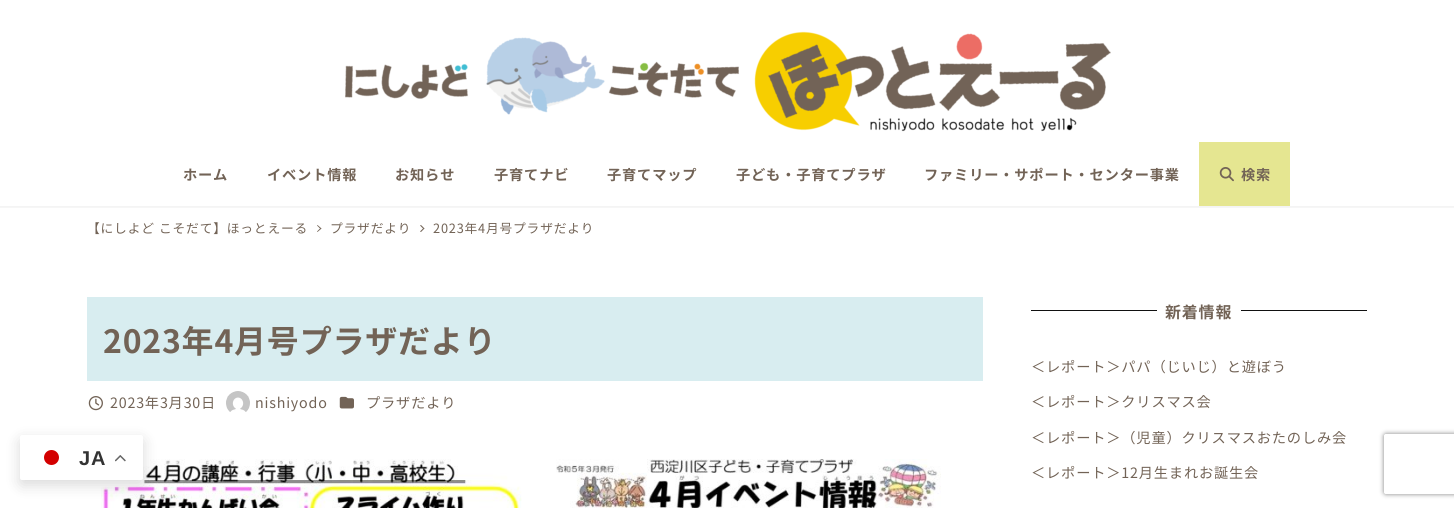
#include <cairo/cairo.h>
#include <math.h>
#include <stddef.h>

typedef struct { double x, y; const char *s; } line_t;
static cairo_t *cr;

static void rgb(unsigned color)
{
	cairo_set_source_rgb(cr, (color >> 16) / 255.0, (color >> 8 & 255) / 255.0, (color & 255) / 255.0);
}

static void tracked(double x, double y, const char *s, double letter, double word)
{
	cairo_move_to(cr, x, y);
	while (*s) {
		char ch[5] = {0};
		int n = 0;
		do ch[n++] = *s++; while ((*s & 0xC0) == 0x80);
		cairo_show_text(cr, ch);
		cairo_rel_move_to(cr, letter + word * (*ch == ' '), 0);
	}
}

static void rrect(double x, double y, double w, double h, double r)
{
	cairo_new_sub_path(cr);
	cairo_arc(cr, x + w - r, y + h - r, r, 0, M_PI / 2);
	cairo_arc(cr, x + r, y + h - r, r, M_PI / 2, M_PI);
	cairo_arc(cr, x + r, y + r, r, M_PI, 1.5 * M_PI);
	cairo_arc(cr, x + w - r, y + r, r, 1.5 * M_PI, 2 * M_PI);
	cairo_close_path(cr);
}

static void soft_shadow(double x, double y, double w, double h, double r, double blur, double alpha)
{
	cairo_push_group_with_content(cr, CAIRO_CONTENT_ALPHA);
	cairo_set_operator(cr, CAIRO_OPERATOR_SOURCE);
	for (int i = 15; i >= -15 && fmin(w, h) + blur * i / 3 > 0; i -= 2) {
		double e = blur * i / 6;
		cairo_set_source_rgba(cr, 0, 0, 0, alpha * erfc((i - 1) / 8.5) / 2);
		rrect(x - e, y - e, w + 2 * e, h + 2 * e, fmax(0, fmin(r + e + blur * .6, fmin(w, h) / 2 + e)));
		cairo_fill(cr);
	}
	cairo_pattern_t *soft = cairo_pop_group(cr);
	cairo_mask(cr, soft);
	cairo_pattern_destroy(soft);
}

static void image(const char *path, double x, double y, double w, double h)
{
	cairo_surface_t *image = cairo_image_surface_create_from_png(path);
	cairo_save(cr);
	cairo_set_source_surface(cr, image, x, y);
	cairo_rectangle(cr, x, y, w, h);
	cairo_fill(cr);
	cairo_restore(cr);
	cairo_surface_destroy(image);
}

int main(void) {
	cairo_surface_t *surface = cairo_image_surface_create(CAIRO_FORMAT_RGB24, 1454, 508);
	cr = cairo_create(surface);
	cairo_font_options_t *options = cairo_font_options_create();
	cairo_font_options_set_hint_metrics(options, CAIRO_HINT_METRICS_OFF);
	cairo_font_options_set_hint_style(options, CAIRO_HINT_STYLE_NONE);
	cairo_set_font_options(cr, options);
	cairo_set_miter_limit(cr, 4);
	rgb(0xffffff);
	cairo_paint(cr);
	image("img/7.png", 101, 459, 840, 49);
	rgb(0x000000);
	soft_shadow(20, 440, 123, 45, 2, 7.5, 0.15);
	rgb(0xffffff);
	rrect(20, 435, 123, 45, 2);
	cairo_fill(cr);
	rgb(0xd30000);
	cairo_arc(cr, 51.5, 457.5, 7.5, 0, 2 * M_PI);
	cairo_fill(cr);
	image("img/1.png", 115, 455, 11, 7);
	cairo_save(cr);
	cairo_rectangle(cr, 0, 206, 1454, 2);
	cairo_clip(cr);
	rgb(0x000000);
	soft_shadow(-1, 0, 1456, 208, 0, 1, 0.05);
	cairo_restore(cr);
	image("img/2.png", 345, 31, 766, 101);
	rgb(0xe5e691);
	cairo_rectangle(cr, 1199, 142, 91, 64);
	cairo_fill(cr);
	image("img/3.png", 1219, 167, 15, 15);
	rgb(0x726356);
	cairo_new_path(cr);
	cairo_move_to(cr, 317.5, 225);
	cairo_line_to(cr, 321.5, 228.5);
	cairo_line_to(cr, 320.5, 229);
	cairo_line_to(cr, 317, 225.5);
	cairo_close_path(cr);
	cairo_fill(cr);
	cairo_new_path(cr);
	cairo_move_to(cr, 320.5, 228);
	cairo_line_to(cr, 321.5, 228.5);
	cairo_line_to(cr, 317.5, 232);
	cairo_line_to(cr, 317, 231.5);
	cairo_close_path(cr);
	cairo_fill(cr);
	cairo_new_path(cr);
	cairo_move_to(cr, 421, 225);
	cairo_line_to(cr, 424.5, 228.5);
	cairo_line_to(cr, 423.5, 229);
	cairo_line_to(cr, 420, 225.5);
	cairo_close_path(cr);
	cairo_fill(cr);
	cairo_new_path(cr);
	cairo_move_to(cr, 423.5, 228);
	cairo_line_to(cr, 424.5, 228.5);
	cairo_line_to(cr, 421, 232);
	cairo_line_to(cr, 420, 231.5);
	cairo_close_path(cr);
	cairo_fill(cr);
	rgb(0xd8edf0);
	cairo_rectangle(cr, 87, 297, 896, 84);
	cairo_fill(cr);
	image("img/4.png", 88, 396, 15, 15);
	image("img/5.png", 226, 391, 24, 21);
	image("img/6.png", 339, 396, 15, 13);
	rgb(0x111111);
	cairo_rectangle(cr, 1031, 310, 126, 1);
	cairo_fill(cr);
	cairo_rectangle(cr, 1241, 310, 126, 1);
	cairo_fill(cr);
	cairo_save(cr);
	cairo_set_fill_rule(cr, CAIRO_FILL_RULE_EVEN_ODD);
	cairo_new_path(cr);
	cairo_move_to(cr, 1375, 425);
	cairo_line_to(cr, 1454, 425);
	cairo_line_to(cr, 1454, 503);
	cairo_line_to(cr, 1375, 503);
	cairo_close_path(cr);
	cairo_move_to(cr, 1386, 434);
	cairo_line_to(cr, 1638, 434);
	cairo_curve_to(cr, 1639, 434, 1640, 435, 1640, 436);
	cairo_line_to(cr, 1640, 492);
	cairo_curve_to(cr, 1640, 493, 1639, 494, 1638, 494);
	cairo_line_to(cr, 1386, 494);
	cairo_curve_to(cr, 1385, 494, 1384, 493, 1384, 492);
	cairo_line_to(cr, 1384, 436);
	cairo_curve_to(cr, 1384, 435, 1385, 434, 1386, 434);
	cairo_close_path(cr);
	cairo_clip(cr);
	rgb(0x808080);
	soft_shadow(1384, 434, 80, 60, 2, 2.5, 1);
	cairo_restore(cr);
	cairo_select_font_face(cr, "Liberation Sans", CAIRO_FONT_SLANT_NORMAL, CAIRO_FONT_WEIGHT_BOLD);
	cairo_set_font_size(cr, 20);
	rgb(0x333333);
	tracked(79, 465, "JA", 0.8, 0);
	cairo_select_font_face(cr, "Noto Sans JP", CAIRO_FONT_SLANT_NORMAL, CAIRO_FONT_WEIGHT_BOLD);
	cairo_set_font_size(cr, 14.25);
	rgb(0x726356);
	{
		static const line_t items[] = {
			{183, 180, "ホーム"},
			{267, 180, "イベント情報"},
			{395, 180, "お知らせ"},
			{494, 180, "子育てナビ"},
			{607, 180, "子育てマップ"},
			{736, 180, "子ども・子育てプラザ"},
			{924, 180, "ファミリー・サポート・センター事業"},
			{1241, 180, "検索"},
		};
		for (size_t i = 0; i < sizeof items / sizeof *items; i++) {
			tracked(items[i].x, items[i].y, items[i].s, 0.8, 0);
		}
	}
	cairo_select_font_face(cr, "Noto Sans JP", CAIRO_FONT_SLANT_NORMAL, CAIRO_FONT_WEIGHT_NORMAL);
	cairo_set_font_size(cr, 12.75);
	{
		static const line_t items[] = {
			{87, 233, "【にしよど"},
			{159, 233, "こそだて】ほっとえーる"},
			{330, 233, "プラザだより"},
			{433, 233, "2023年4月号プラザだより"},
		};
		for (size_t i = 0; i < sizeof items / sizeof *items; i++) {
			tracked(items[i].x, items[i].y, items[i].s, 0.8, 0);
		}
	}
	cairo_select_font_face(cr, "Noto Sans JP", CAIRO_FONT_SLANT_NORMAL, CAIRO_FONT_WEIGHT_BOLD);
	cairo_set_font_size(cr, 32);
	tracked(103, 353, "2023年4月号プラザだより", 0.8, 0);
	cairo_select_font_face(cr, "Noto Sans JP", CAIRO_FONT_SLANT_NORMAL, CAIRO_FONT_WEIGHT_NORMAL);
	cairo_set_font_size(cr, 14.25);
	{
		static const line_t items[] = {
			{110, 408, "2023年3月30日"},
			{255, 408, "nishiyodo"},
			{366, 408, "プラザだより"},
		};
		for (size_t i = 0; i < sizeof items / sizeof *items; i++) {
			tracked(items[i].x, items[i].y, items[i].s, 0.8, 0);
		}
	}
	cairo_select_font_face(cr, "Noto Sans JP", CAIRO_FONT_SLANT_NORMAL, CAIRO_FONT_WEIGHT_BOLD);
	cairo_set_font_size(cr, 16);
	tracked(1165, 318, "新着情報", 0.8, 0);
	cairo_select_font_face(cr, "Noto Sans JP", CAIRO_FONT_SLANT_NORMAL, CAIRO_FONT_WEIGHT_NORMAL);
	cairo_set_font_size(cr, 14.25);
	{
		static const line_t items[] = {
			{1031, 372, "＜レポート＞パパ（じいじ）と遊ぼう"},
			{1031, 407, "＜レポート＞クリスマス会"},
			{1031, 443, "＜レポート＞（児童）クリスマスおたのしみ会"},
			{1031, 478, "＜レポート＞12月生まれお誕生会"},
		};
		for (size_t i = 0; i < sizeof items / sizeof *items; i++) {
			tracked(items[i].x, items[i].y, items[i].s, 0.8, 0);
		}
	}
	cairo_surface_write_to_png(surface, "page.png");
	cairo_font_options_destroy(options);
	cairo_destroy(cr);
	cairo_surface_destroy(surface);
	return 0;
}
